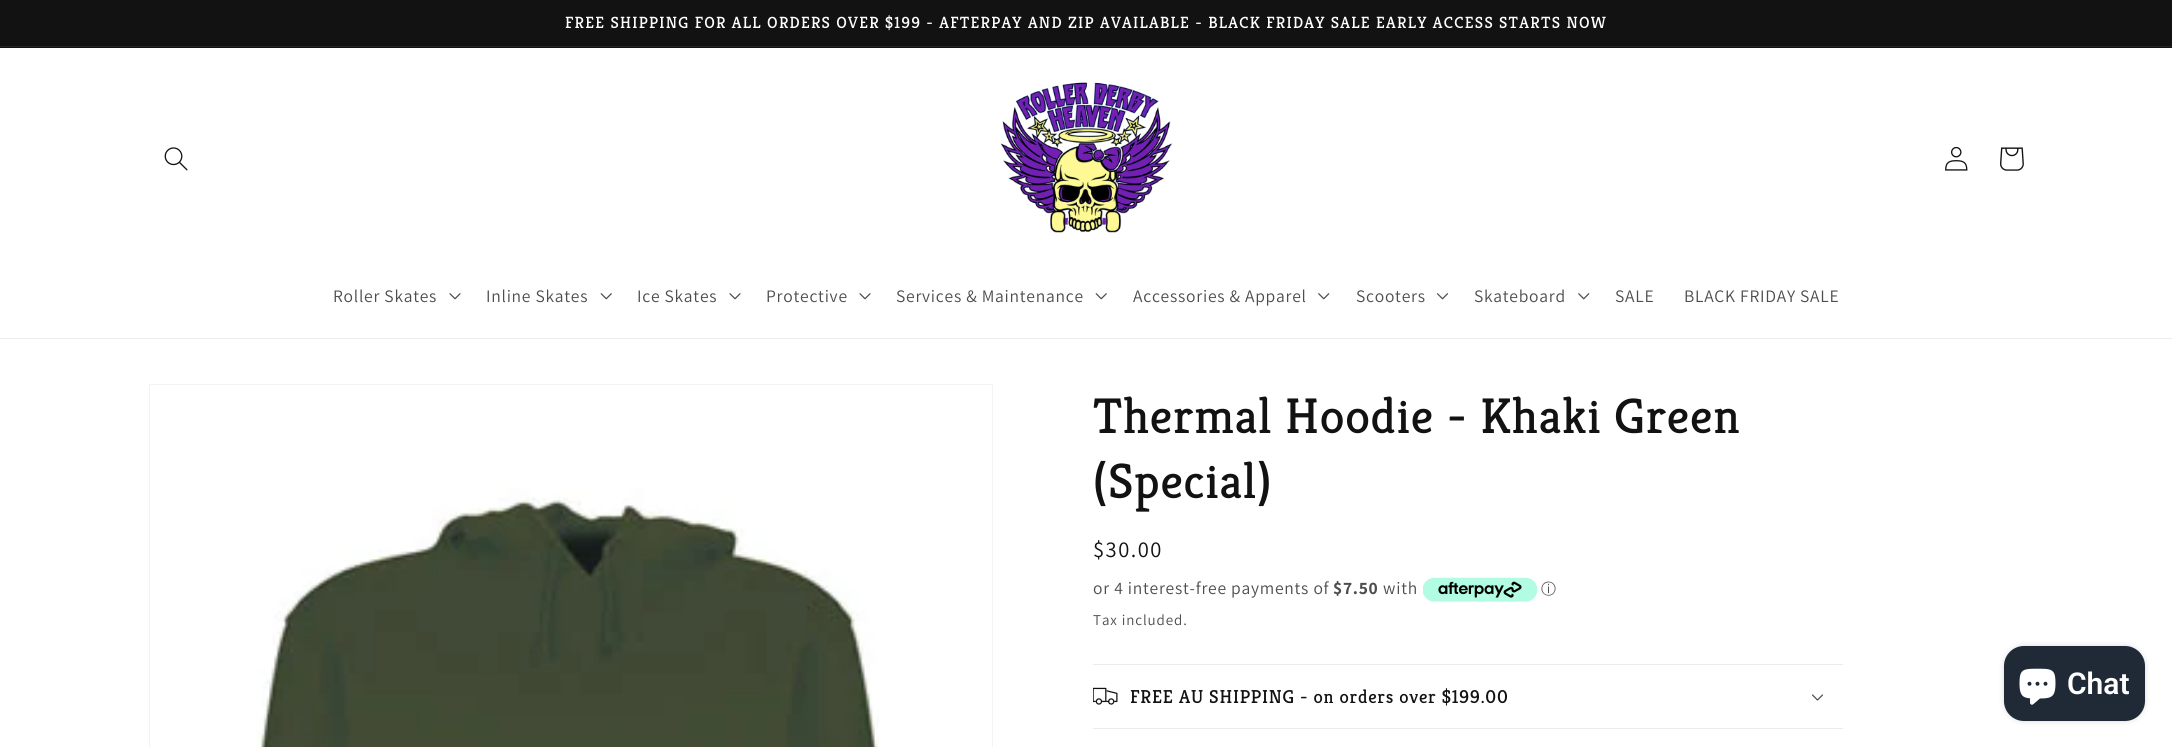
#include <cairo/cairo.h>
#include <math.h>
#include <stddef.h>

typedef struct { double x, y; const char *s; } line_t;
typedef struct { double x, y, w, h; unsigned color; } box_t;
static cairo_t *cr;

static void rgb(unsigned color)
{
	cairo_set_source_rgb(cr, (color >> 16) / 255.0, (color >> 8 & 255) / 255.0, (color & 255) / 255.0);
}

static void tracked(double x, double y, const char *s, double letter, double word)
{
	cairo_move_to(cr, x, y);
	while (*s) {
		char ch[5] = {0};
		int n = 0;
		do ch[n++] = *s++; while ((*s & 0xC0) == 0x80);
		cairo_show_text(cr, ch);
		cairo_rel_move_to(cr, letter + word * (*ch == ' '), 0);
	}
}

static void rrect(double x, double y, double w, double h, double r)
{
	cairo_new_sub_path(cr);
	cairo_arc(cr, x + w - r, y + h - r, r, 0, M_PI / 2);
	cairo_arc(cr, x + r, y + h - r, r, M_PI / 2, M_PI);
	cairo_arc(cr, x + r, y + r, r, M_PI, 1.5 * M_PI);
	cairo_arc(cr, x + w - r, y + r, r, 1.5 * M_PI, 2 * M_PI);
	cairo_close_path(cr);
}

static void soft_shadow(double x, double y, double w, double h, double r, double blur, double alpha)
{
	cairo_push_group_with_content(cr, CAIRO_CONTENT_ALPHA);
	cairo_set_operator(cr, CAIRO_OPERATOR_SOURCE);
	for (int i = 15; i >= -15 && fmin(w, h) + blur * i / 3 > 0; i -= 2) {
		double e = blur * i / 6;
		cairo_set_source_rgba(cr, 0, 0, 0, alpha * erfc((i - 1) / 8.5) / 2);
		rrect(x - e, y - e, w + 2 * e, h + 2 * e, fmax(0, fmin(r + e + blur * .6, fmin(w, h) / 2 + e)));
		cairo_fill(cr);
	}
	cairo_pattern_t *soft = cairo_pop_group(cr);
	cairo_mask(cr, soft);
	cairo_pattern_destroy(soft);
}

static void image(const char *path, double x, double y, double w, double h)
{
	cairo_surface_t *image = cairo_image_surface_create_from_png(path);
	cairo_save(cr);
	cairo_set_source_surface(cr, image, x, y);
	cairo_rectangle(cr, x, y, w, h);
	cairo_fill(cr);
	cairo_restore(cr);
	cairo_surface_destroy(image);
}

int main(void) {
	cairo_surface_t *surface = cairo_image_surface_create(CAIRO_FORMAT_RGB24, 2172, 747);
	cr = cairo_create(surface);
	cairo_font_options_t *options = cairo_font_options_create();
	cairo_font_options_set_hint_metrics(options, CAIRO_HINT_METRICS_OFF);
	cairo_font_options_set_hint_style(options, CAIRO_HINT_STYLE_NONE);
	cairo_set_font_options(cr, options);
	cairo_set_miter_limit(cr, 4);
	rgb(0xffffff);
	cairo_paint(cr);
	{
		static const box_t items[] = {
			{0, 0, 2172, 48, 0x121212},
			{0, 46, 2172, 1, 0x252525},
			{0, 338, 2172, 1, 0xececec},
		};
		for (size_t i = 0; i < sizeof items / sizeof *items; i++) {
			rgb(items[i].color);
			cairo_rectangle(cr, items[i].x, items[i].y, items[i].w, items[i].h);
			cairo_fill(cr);
		}
	}
	image("img/1.png", 164, 147, 24, 24);
	image("img/2.png", 1000, 82, 173, 151);
	image("img/3.png", 1945, 146, 23, 25);
	image("img/4.png", 2000, 147, 24, 24);
	image("img/5.png", 449, 293, 12, 7);
	image("img/6.png", 600, 293, 12, 7);
	image("img/5.png", 729, 293, 12, 7);
	image("img/5.png", 859, 293, 12, 7);
	image("img/6.png", 1095, 293, 12, 7);
	image("img/7.png", 1318, 293, 12, 7);
	image("img/8.png", 1436, 293, 13, 7);
	image("img/7.png", 1578, 293, 12, 7);
	cairo_rectangle(cr, 149.5, 384.5, 843, 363);
	rgb(0xf3f3f3);
	cairo_set_line_width(cr, 1);
	cairo_stroke(cr);
	image("img/9.png", 256, 488, 623, 259);
	image("img/10.png", 1423, 577, 115, 25);
	rgb(0xececec);
	cairo_rectangle(cr, 1093, 664, 750, 1);
	cairo_fill(cr);
	cairo_rectangle(cr, 1093, 728, 750, 1);
	cairo_fill(cr);
	image("img/11.png", 1093, 687, 25, 18);
	image("img/12.png", 1812, 694, 11, 7);
	rgb(0x000000);
	soft_shadow(2004, 646, 141, 75, 20, 3, 0.15);
	rgb(0x202a36);
	rrect(2004, 646, 141, 75, 20);
	cairo_fill(cr);
	image("img/13.png", 2019, 668, 37, 37);
	cairo_select_font_face(cr, "Kreon", CAIRO_FONT_SLANT_NORMAL, CAIRO_FONT_WEIGHT_NORMAL);
	cairo_set_font_size(cr, 16.25);
	rgb(0xffffff);
	tracked(565, 28, "FREE SHIPPING FOR ALL ORDERS OVER $199 - AFTERPAY AND ZIP AVAILABLE - BLACK FRIDAY SALE EARLY ACCESS STARTS NOW", 1.25, 0);
	cairo_select_font_face(cr, "Assistant", CAIRO_FONT_SLANT_NORMAL, CAIRO_FONT_WEIGHT_NORMAL);
	cairo_set_font_size(cr, 17.5);
	rgb(0x4d4d4d);
	{
		static const line_t items[] = {
			{333, 302, "Roller Skates"},
			{486, 302, "Inline Skates"},
			{637, 302, "Ice Skates"},
			{766, 302, "Protective"},
			{896, 302, "Services & Maintenance"},
			{1133, 302, "Accessories & Apparel"},
			{1356, 302, "Scooters"},
			{1474, 302, "Skateboard"},
			{1615, 302, "SALE"},
			{1684, 302, "BLACK FRIDAY SALE"},
		};
		for (size_t i = 0; i < sizeof items / sizeof *items; i++) {
			tracked(items[i].x, items[i].y, items[i].s, 0.75, 0);
		}
	}
	cairo_select_font_face(cr, "Kreon", CAIRO_FONT_SLANT_NORMAL, CAIRO_FONT_WEIGHT_NORMAL);
	cairo_set_font_size(cr, 50);
	rgb(0x121212);
	tracked(1093, 433, "Thermal Hoodie - Khaki Green", 0.75, 0);
	tracked(1093, 498, "(Special)", 0.75, 0);
	cairo_select_font_face(cr, "Assistant", CAIRO_FONT_SLANT_NORMAL, CAIRO_FONT_WEIGHT_NORMAL);
	cairo_set_font_size(cr, 22.5);
	tracked(1093, 557, "$30.00", 1.5, 0);
	cairo_set_font_size(cr, 17.5);
	rgb(0x4d4d4d);
	tracked(1093, 594, "or 4 interest-free payments of", 0.75, 0);
	cairo_select_font_face(cr, "Assistant", CAIRO_FONT_SLANT_NORMAL, CAIRO_FONT_WEIGHT_BOLD);
	tracked(1333, 594, "$7.50", 0.75, 0);
	cairo_select_font_face(cr, "Assistant", CAIRO_FONT_SLANT_NORMAL, CAIRO_FONT_WEIGHT_NORMAL);
	tracked(1383, 594, "with", 0.75, 0);
	cairo_select_font_face(cr, "WenQuanYi Zen Hei Medium", CAIRO_FONT_SLANT_NORMAL, CAIRO_FONT_WEIGHT_NORMAL);
	cairo_set_font_size(cr, 15);
	cairo_move_to(cr, 1541, 594);
	cairo_show_text(cr, "ⓘ");
	cairo_select_font_face(cr, "Assistant", CAIRO_FONT_SLANT_NORMAL, CAIRO_FONT_WEIGHT_NORMAL);
	tracked(1093, 625, "Tax included.", 0.9, 0);
	cairo_select_font_face(cr, "Kreon", CAIRO_FONT_SLANT_NORMAL, CAIRO_FONT_WEIGHT_NORMAL);
	cairo_set_font_size(cr, 18.75);
	rgb(0x121212);
	tracked(1130, 703, "FREE AU SHIPPING - on orders over $199.00", 0.75, 0);
	cairo_select_font_face(cr, "Roboto SemiBold", CAIRO_FONT_SLANT_NORMAL, CAIRO_FONT_WEIGHT_NORMAL);
	cairo_set_font_size(cr, 30);
	rgb(0xffffff);
	cairo_move_to(cr, 2067, 694);
	cairo_show_text(cr, "Chat");
	cairo_surface_write_to_png(surface, "page.png");
	cairo_font_options_destroy(options);
	cairo_destroy(cr);
	cairo_surface_destroy(surface);
	return 0;
}
